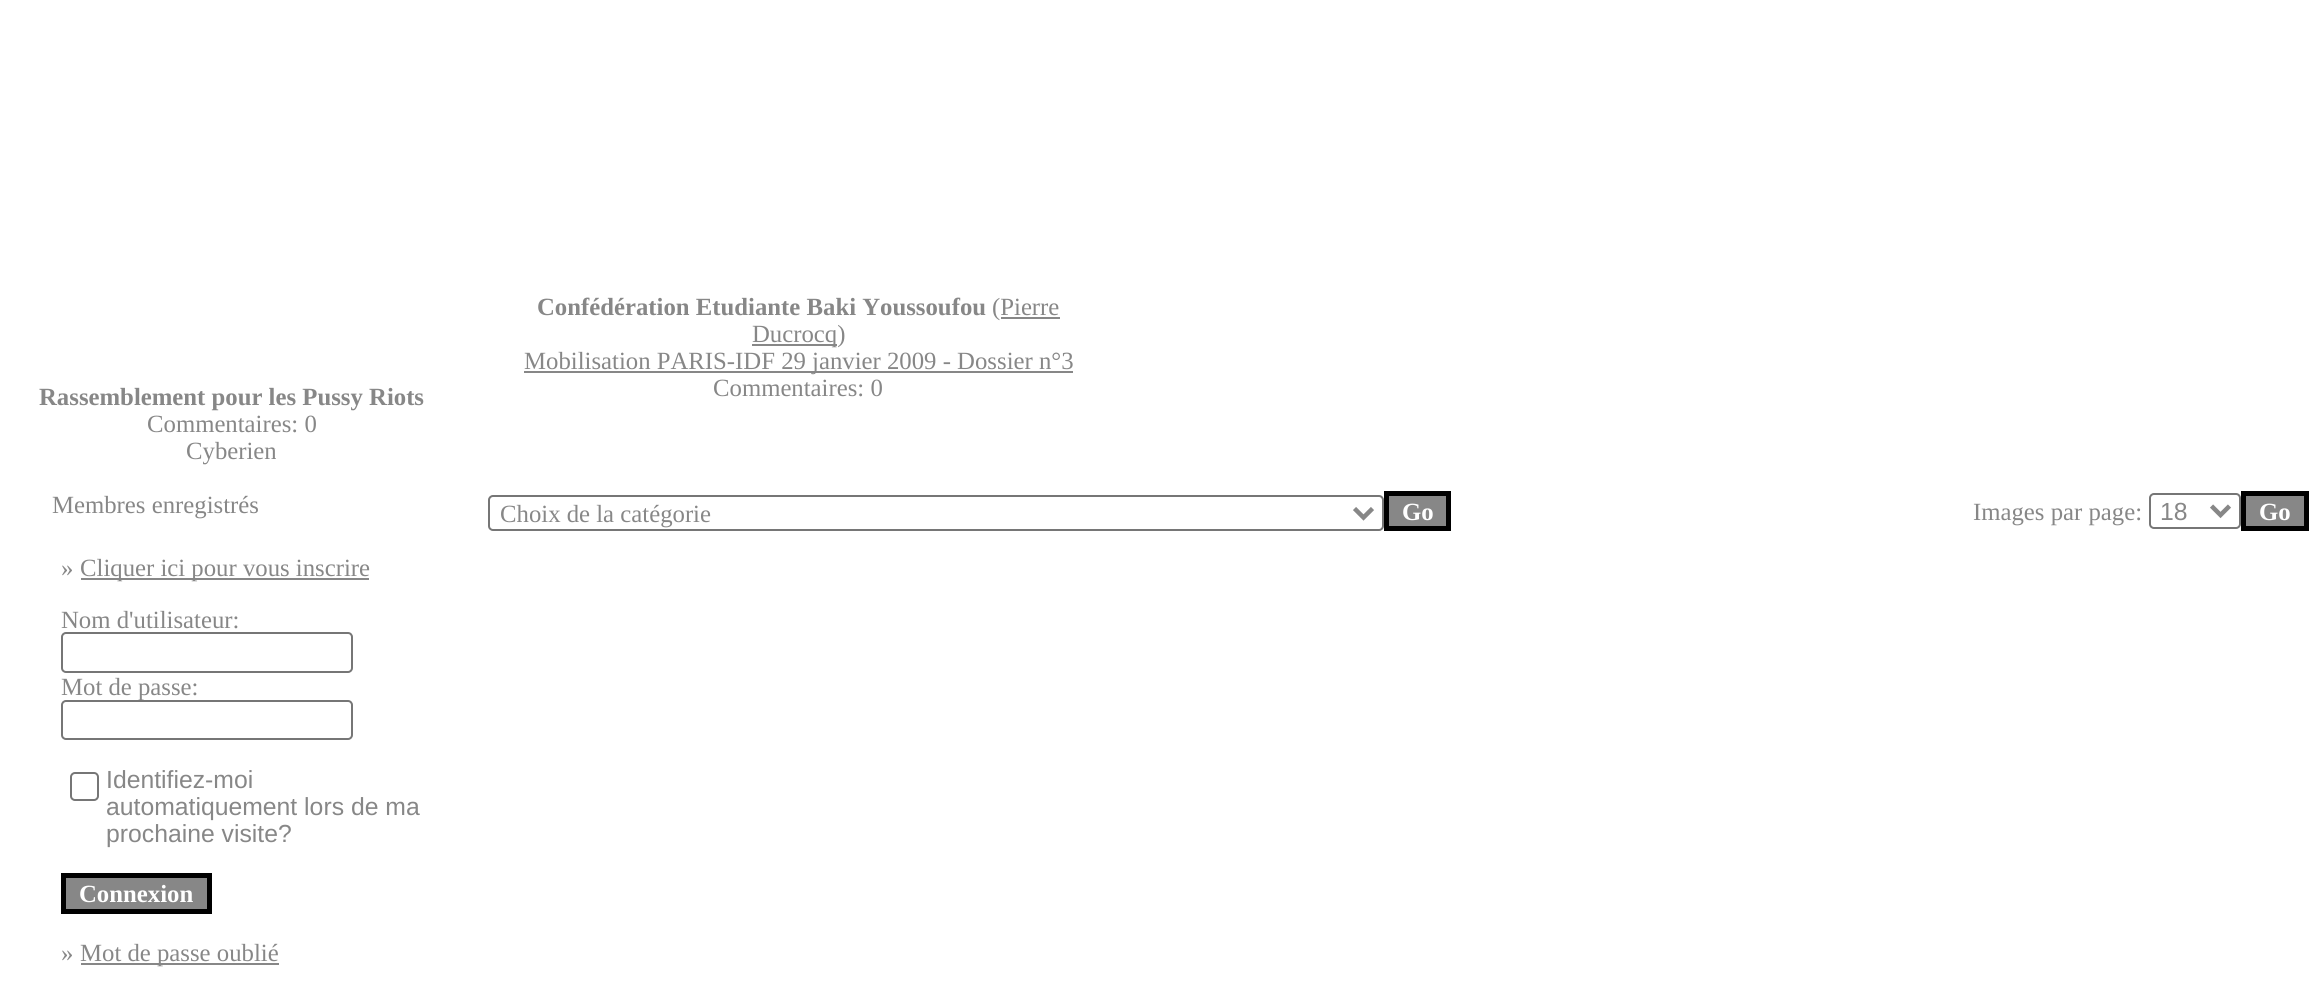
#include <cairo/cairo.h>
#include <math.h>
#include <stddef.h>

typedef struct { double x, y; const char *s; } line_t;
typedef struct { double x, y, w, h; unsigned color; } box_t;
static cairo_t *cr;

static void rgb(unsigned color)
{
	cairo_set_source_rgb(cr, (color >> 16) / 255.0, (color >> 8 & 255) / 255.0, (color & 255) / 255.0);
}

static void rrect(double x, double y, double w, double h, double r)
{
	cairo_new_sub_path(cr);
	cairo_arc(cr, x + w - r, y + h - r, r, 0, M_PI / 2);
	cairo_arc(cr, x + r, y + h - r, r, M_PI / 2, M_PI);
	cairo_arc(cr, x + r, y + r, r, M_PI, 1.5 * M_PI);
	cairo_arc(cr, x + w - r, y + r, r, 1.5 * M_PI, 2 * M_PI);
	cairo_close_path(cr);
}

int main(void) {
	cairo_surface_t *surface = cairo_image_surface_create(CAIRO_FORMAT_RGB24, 2315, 997);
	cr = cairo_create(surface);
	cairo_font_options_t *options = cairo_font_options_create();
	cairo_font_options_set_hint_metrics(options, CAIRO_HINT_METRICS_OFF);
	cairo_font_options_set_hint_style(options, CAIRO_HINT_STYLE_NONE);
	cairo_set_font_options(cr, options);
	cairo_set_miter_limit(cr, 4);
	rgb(0xffffff);
	cairo_paint(cr);
	rgb(0x878787);
	cairo_rectangle(cr, 81, 578, 288, 2);
	cairo_fill(cr);
	rrect(62, 633, 290, 39, 4);
	rgb(0x767676);
	cairo_stroke(cr);
	rrect(71, 773, 27, 27, 4);
	cairo_stroke(cr);
	rgb(0x878787);
	cairo_rectangle(cr, 63.5, 875.5, 146, 36);
	cairo_fill_preserve(cr);
	rgb(0x000000);
	cairo_set_line_width(cr, 5);
	cairo_stroke(cr);
	{
		static const box_t items[] = {
			{81, 963, 198, 2, 0x878787},
			{1001, 317, 59, 2, 0x878787},
			{752, 344, 85, 2, 0x878787},
			{524, 371, 549, 2, 0x878787},
		};
		for (size_t i = 0; i < sizeof items / sizeof *items; i++) {
			rgb(items[i].color);
			cairo_rectangle(cr, items[i].x, items[i].y, items[i].w, items[i].h);
			cairo_fill(cr);
		}
	}
	rrect(489, 496, 894, 34, 4);
	rgb(0x767676);
	cairo_set_line_width(cr, 2);
	cairo_stroke(cr);
	cairo_new_path(cr);
	cairo_move_to(cr, 1354.5, 508.5);
	cairo_line_to(cr, 1363.5, 517.5);
	cairo_line_to(cr, 1372.5, 508.5);
	rgb(0x878787);
	cairo_set_line_width(cr, 4.5);
	cairo_stroke(cr);
	cairo_rectangle(cr, 1386.5, 493.5, 62, 35);
	cairo_fill_preserve(cr);
	rgb(0x000000);
	cairo_set_line_width(cr, 5);
	cairo_stroke(cr);
	rrect(2150, 494, 90, 34, 4);
	rgb(0x767676);
	cairo_set_line_width(cr, 2);
	cairo_stroke(cr);
	cairo_new_path(cr);
	cairo_move_to(cr, 2211.5, 506);
	cairo_line_to(cr, 2220.5, 515);
	cairo_line_to(cr, 2229.5, 506);
	rgb(0x878787);
	cairo_set_line_width(cr, 4.5);
	cairo_stroke(cr);
	cairo_rectangle(cr, 2243.5, 493.5, 63, 35);
	cairo_fill_preserve(cr);
	rgb(0x000000);
	cairo_set_line_width(cr, 5);
	cairo_stroke(cr);
	cairo_select_font_face(cr, "Liberation Serif", CAIRO_FONT_SLANT_NORMAL, CAIRO_FONT_WEIGHT_BOLD);
	cairo_set_font_size(cr, 24.75);
	rgb(0x878787);
	cairo_move_to(cr, 39, 405);
	cairo_show_text(cr, "Rassemblement pour les Pussy Riots");
	cairo_select_font_face(cr, "Liberation Serif", CAIRO_FONT_SLANT_NORMAL, CAIRO_FONT_WEIGHT_NORMAL);
	{
		static const line_t items[] = {
			{147, 432, "Commentaires: 0"},
			{186, 459, "Cyberien"},
			{52, 513, "Membres enregistrés"},
			{61, 576, "»"},
			{80, 576, "Cliquer ici pour vous inscrire"},
			{61, 628, "Nom d'utilisateur:"},
			{61, 695, "Mot de passe:"},
		};
		for (size_t i = 0; i < sizeof items / sizeof *items; i++) {
			cairo_move_to(cr, items[i].x, items[i].y);
			cairo_show_text(cr, items[i].s);
		}
	}
	rgb(0xffffff);
	rrect(62, 701, 290, 38, 4);
	cairo_fill_preserve(cr);
	rgb(0x767676);
	cairo_set_line_width(cr, 2);
	cairo_stroke(cr);
	cairo_select_font_face(cr, "Liberation Sans", CAIRO_FONT_SLANT_NORMAL, CAIRO_FONT_WEIGHT_NORMAL);
	rgb(0x878787);
	{
		static const line_t items[] = {
			{106, 788, "Identifiez-moi"},
			{106, 815, "automatiquement lors de ma"},
			{106, 842, "prochaine visite?"},
		};
		for (size_t i = 0; i < sizeof items / sizeof *items; i++) {
			cairo_move_to(cr, items[i].x, items[i].y);
			cairo_show_text(cr, items[i].s);
		}
	}
	cairo_select_font_face(cr, "Liberation Serif", CAIRO_FONT_SLANT_NORMAL, CAIRO_FONT_WEIGHT_BOLD);
	rgb(0xffffff);
	cairo_move_to(cr, 79, 902);
	cairo_show_text(cr, "Connexion");
	cairo_select_font_face(cr, "Liberation Serif", CAIRO_FONT_SLANT_NORMAL, CAIRO_FONT_WEIGHT_NORMAL);
	rgb(0x878787);
	cairo_move_to(cr, 61, 961);
	cairo_show_text(cr, "»");
	cairo_move_to(cr, 80, 961);
	cairo_show_text(cr, "Mot de passe oublié");
	cairo_select_font_face(cr, "Liberation Serif", CAIRO_FONT_SLANT_NORMAL, CAIRO_FONT_WEIGHT_BOLD);
	cairo_move_to(cr, 537, 315);
	cairo_show_text(cr, "Confédération Etudiante Baki Youssoufou");
	cairo_select_font_face(cr, "Liberation Serif", CAIRO_FONT_SLANT_NORMAL, CAIRO_FONT_WEIGHT_NORMAL);
	{
		static const line_t items[] = {
			{992, 315, "(Pierre"},
			{752, 342, "Ducrocq)"},
			{524, 369, "Mobilisation PARIS-IDF 29 janvier 2009 - Dossier n°3"},
			{713, 396, "Commentaires: 0"},
			{500, 522, "Choix de la catégorie"},
		};
		for (size_t i = 0; i < sizeof items / sizeof *items; i++) {
			cairo_move_to(cr, items[i].x, items[i].y);
			cairo_show_text(cr, items[i].s);
		}
	}
	cairo_select_font_face(cr, "Liberation Serif", CAIRO_FONT_SLANT_NORMAL, CAIRO_FONT_WEIGHT_BOLD);
	rgb(0xffffff);
	cairo_move_to(cr, 1402, 520);
	cairo_show_text(cr, "Go");
	cairo_select_font_face(cr, "Liberation Serif", CAIRO_FONT_SLANT_NORMAL, CAIRO_FONT_WEIGHT_NORMAL);
	rgb(0x878787);
	cairo_move_to(cr, 1973, 520);
	cairo_show_text(cr, "Images par page:");
	cairo_select_font_face(cr, "Liberation Sans", CAIRO_FONT_SLANT_NORMAL, CAIRO_FONT_WEIGHT_NORMAL);
	cairo_move_to(cr, 2160, 520);
	cairo_show_text(cr, "18");
	cairo_select_font_face(cr, "Liberation Serif", CAIRO_FONT_SLANT_NORMAL, CAIRO_FONT_WEIGHT_BOLD);
	rgb(0xffffff);
	cairo_move_to(cr, 2259, 520);
	cairo_show_text(cr, "Go");
	cairo_surface_write_to_png(surface, "page.png");
	cairo_font_options_destroy(options);
	cairo_destroy(cr);
	cairo_surface_destroy(surface);
	return 0;
}
